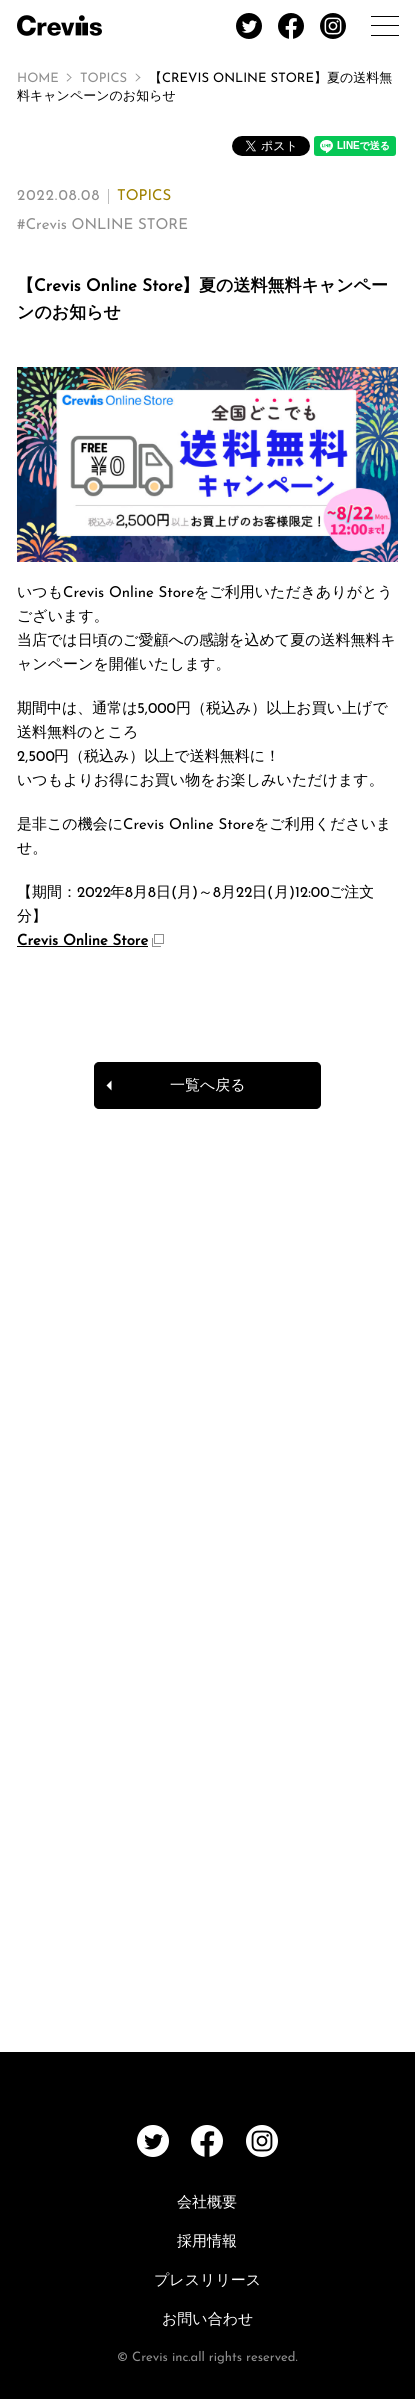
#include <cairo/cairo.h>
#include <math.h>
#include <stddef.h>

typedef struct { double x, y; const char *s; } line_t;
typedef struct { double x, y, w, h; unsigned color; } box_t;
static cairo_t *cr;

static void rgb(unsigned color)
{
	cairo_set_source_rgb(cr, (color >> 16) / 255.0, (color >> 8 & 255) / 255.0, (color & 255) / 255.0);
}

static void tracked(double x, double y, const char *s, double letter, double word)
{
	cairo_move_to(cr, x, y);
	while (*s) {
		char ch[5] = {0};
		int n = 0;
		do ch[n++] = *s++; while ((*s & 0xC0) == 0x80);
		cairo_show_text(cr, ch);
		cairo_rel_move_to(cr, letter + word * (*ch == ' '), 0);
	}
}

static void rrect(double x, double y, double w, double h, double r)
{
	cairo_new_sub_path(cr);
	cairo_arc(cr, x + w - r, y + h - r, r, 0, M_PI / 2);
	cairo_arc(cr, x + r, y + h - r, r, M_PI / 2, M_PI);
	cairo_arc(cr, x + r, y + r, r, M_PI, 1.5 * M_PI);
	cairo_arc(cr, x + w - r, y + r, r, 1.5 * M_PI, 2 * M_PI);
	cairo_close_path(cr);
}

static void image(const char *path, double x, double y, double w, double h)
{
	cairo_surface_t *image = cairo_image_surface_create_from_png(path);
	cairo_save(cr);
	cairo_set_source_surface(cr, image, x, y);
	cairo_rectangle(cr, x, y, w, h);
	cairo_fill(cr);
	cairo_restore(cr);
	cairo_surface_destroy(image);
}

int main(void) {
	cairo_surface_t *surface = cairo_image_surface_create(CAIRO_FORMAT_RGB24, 415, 2399);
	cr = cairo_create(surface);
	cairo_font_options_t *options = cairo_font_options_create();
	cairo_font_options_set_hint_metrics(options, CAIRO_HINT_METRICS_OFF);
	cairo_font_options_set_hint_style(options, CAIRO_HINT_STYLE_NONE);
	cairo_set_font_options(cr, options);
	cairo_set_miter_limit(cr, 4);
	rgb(0xffffff);
	cairo_paint(cr);
	image("img/1.png", 17, 15, 85, 21);
	image("img/2.png", 236, 13, 26, 26);
	image("img/3.png", 278, 13, 26, 26);
	image("img/4.png", 320, 13, 26, 26);
	{
		static const box_t items[] = {
			{371, 25, 28, 1, 0x000000},
			{371, 16, 28, 1, 0x000000},
			{371, 35, 28, 1, 0x000000},
		};
		for (size_t i = 0; i < sizeof items / sizeof *items; i++) {
			rgb(items[i].color);
			cairo_rectangle(cr, items[i].x, items[i].y, items[i].w, items[i].h);
			cairo_fill(cr);
		}
	}
	rgb(0x8f8f8f);
	cairo_new_path(cr);
	cairo_move_to(cr, 67.5, 73.5);
	cairo_line_to(cr, 71.5, 77.5);
	cairo_line_to(cr, 71, 78);
	cairo_line_to(cr, 66.5, 74);
	cairo_close_path(cr);
	cairo_fill(cr);
	cairo_new_path(cr);
	cairo_move_to(cr, 71, 77);
	cairo_line_to(cr, 71.5, 77.5);
	cairo_line_to(cr, 67.5, 81.5);
	cairo_line_to(cr, 66.5, 81);
	cairo_close_path(cr);
	cairo_fill(cr);
	cairo_new_path(cr);
	cairo_move_to(cr, 136, 73.5);
	cairo_line_to(cr, 140.5, 77.5);
	cairo_line_to(cr, 139.5, 78);
	cairo_line_to(cr, 135.5, 74);
	cairo_close_path(cr);
	cairo_fill(cr);
	cairo_new_path(cr);
	cairo_move_to(cr, 139.5, 77);
	cairo_line_to(cr, 140.5, 77.5);
	cairo_line_to(cr, 136, 81.5);
	cairo_line_to(cr, 135.5, 81);
	cairo_close_path(cr);
	cairo_fill(cr);
	image("img/5.png", 232, 136, 78, 20);
	image("img/6.png", 314, 136, 82, 20);
	rgb(0xbdbdbd);
	cairo_rectangle(cr, 108, 189, 1, 15);
	cairo_fill(cr);
	image("img/7.png", 17, 367, 381, 195);
	rgb(0x000000);
	cairo_rectangle(cr, 17, 946, 131, 1);
	cairo_fill(cr);
	cairo_rectangle(cr, 154.5, 934.5, 9, 9);
	rgb(0x8f8f8f);
	cairo_set_line_width(cr, 1);
	cairo_stroke(cr);
	cairo_rectangle(cr, 152, 946, 9, 1);
	cairo_fill(cr);
	cairo_rectangle(cr, 152, 938, 1, 9);
	cairo_fill(cr);
	rgb(0x000000);
	rrect(94.5, 1062.5, 226, 46, 4.5);
	cairo_fill_preserve(cr);
	cairo_stroke(cr);
	rgb(0xffffff);
	cairo_new_path(cr);
	cairo_move_to(cr, 111.5, 1080.5);
	cairo_line_to(cr, 111.5, 1090.5);
	cairo_line_to(cr, 106.5, 1085.5);
	cairo_close_path(cr);
	cairo_fill(cr);
	rgb(0x000000);
	cairo_rectangle(cr, 0, 2052, 415, 347);
	cairo_fill(cr);
	image("img/8.png", 137, 2125, 32, 32);
	image("img/9.png", 191, 2125, 32, 32);
	image("img/10.png", 246, 2125, 32, 32);
	cairo_select_font_face(cr, "Josefin Sans Thin", CAIRO_FONT_SLANT_NORMAL, CAIRO_FONT_WEIGHT_NORMAL);
	cairo_set_font_size(cr, 13);
	rgb(0x8f8f8f);
	cairo_move_to(cr, 17, 82);
	cairo_show_text(cr, "HOME");
	cairo_move_to(cr, 80, 82);
	cairo_show_text(cr, "TOPICS");
	cairo_select_font_face(cr, "WenQuanYi Zen Hei Medium", CAIRO_FONT_SLANT_NORMAL, CAIRO_FONT_WEIGHT_NORMAL);
	rgb(0x000000);
	cairo_move_to(cr, 149, 82);
	cairo_show_text(cr, "【");
	cairo_select_font_face(cr, "Josefin Sans Thin", CAIRO_FONT_SLANT_NORMAL, CAIRO_FONT_WEIGHT_NORMAL);
	cairo_move_to(cr, 162, 82);
	cairo_show_text(cr, "CREVIS ONLINE STORE");
	cairo_select_font_face(cr, "WenQuanYi Zen Hei Medium", CAIRO_FONT_SLANT_NORMAL, CAIRO_FONT_WEIGHT_NORMAL);
	cairo_move_to(cr, 314, 82);
	cairo_show_text(cr, "】夏の送料無");
	cairo_move_to(cr, 17, 100);
	cairo_show_text(cr, "料キャンペーンのお知らせ");
	cairo_select_font_face(cr, "Josefin Sans Thin", CAIRO_FONT_SLANT_NORMAL, CAIRO_FONT_WEIGHT_NORMAL);
	cairo_set_font_size(cr, 15);
	rgb(0x8f8f8f);
	tracked(17, 200, "2022.08.08", 1, 0);
	rgb(0x9f8100);
	cairo_move_to(cr, 117, 200);
	cairo_show_text(cr, "TOPICS");
	rgb(0x8f8f8f);
	cairo_move_to(cr, 17, 229);
	cairo_show_text(cr, "#Crevis ONLINE STORE");
	cairo_select_font_face(cr, "WenQuanYi Zen Hei", CAIRO_FONT_SLANT_NORMAL, CAIRO_FONT_WEIGHT_BOLD);
	cairo_set_font_size(cr, 17);
	rgb(0x000000);
	cairo_move_to(cr, 17, 291);
	cairo_show_text(cr, "【");
	cairo_select_font_face(cr, "Josefin Sans", CAIRO_FONT_SLANT_NORMAL, CAIRO_FONT_WEIGHT_BOLD);
	cairo_move_to(cr, 34, 291);
	cairo_show_text(cr, "Crevis Online Store");
	cairo_select_font_face(cr, "WenQuanYi Zen Hei", CAIRO_FONT_SLANT_NORMAL, CAIRO_FONT_WEIGHT_BOLD);
	cairo_move_to(cr, 182, 291);
	cairo_show_text(cr, "】夏の送料無料キャンペー");
	cairo_move_to(cr, 17, 318);
	cairo_show_text(cr, "ンのお知らせ");
	cairo_select_font_face(cr, "WenQuanYi Zen Hei Medium", CAIRO_FONT_SLANT_NORMAL, CAIRO_FONT_WEIGHT_NORMAL);
	cairo_set_font_size(cr, 15);
	cairo_move_to(cr, 17, 597);
	cairo_show_text(cr, "いつも");
	cairo_select_font_face(cr, "Josefin Sans Thin", CAIRO_FONT_SLANT_NORMAL, CAIRO_FONT_WEIGHT_NORMAL);
	cairo_move_to(cr, 63, 597);
	cairo_show_text(cr, "Crevis Online Store");
	cairo_select_font_face(cr, "WenQuanYi Zen Hei Medium", CAIRO_FONT_SLANT_NORMAL, CAIRO_FONT_WEIGHT_NORMAL);
	{
		static const line_t items[] = {
			{194, 597, "をご利用いただきありがとう"},
			{17, 621, "ございます。"},
			{17, 645, "当店では日頃のご愛顧への感謝を込めて夏の送料無料キ"},
			{17, 669, "ャンペーンを開催いたします。"},
			{17, 713, "期間中は、通常は"},
		};
		for (size_t i = 0; i < sizeof items / sizeof *items; i++) {
			cairo_move_to(cr, items[i].x, items[i].y);
			cairo_show_text(cr, items[i].s);
		}
	}
	cairo_select_font_face(cr, "Josefin Sans Thin", CAIRO_FONT_SLANT_NORMAL, CAIRO_FONT_WEIGHT_NORMAL);
	cairo_move_to(cr, 137, 713);
	cairo_show_text(cr, "5,000");
	cairo_select_font_face(cr, "WenQuanYi Zen Hei Medium", CAIRO_FONT_SLANT_NORMAL, CAIRO_FONT_WEIGHT_NORMAL);
	cairo_move_to(cr, 176, 713);
	cairo_show_text(cr, "円（税込み）以上お買い上げで");
	cairo_move_to(cr, 17, 737);
	cairo_show_text(cr, "送料無料のところ");
	cairo_select_font_face(cr, "Josefin Sans Thin", CAIRO_FONT_SLANT_NORMAL, CAIRO_FONT_WEIGHT_NORMAL);
	cairo_move_to(cr, 17, 761);
	cairo_show_text(cr, "2,500");
	cairo_select_font_face(cr, "WenQuanYi Zen Hei Medium", CAIRO_FONT_SLANT_NORMAL, CAIRO_FONT_WEIGHT_NORMAL);
	{
		static const line_t items[] = {
			{54, 761, "円（税込み）以上で送料無料に！"},
			{17, 785, "いつもよりお得にお買い物をお楽しみいただけます。"},
			{17, 829, "是非この機会に"},
		};
		for (size_t i = 0; i < sizeof items / sizeof *items; i++) {
			cairo_move_to(cr, items[i].x, items[i].y);
			cairo_show_text(cr, items[i].s);
		}
	}
	cairo_select_font_face(cr, "Josefin Sans Thin", CAIRO_FONT_SLANT_NORMAL, CAIRO_FONT_WEIGHT_NORMAL);
	cairo_move_to(cr, 123, 829);
	cairo_show_text(cr, "Crevis Online Store");
	cairo_select_font_face(cr, "WenQuanYi Zen Hei Medium", CAIRO_FONT_SLANT_NORMAL, CAIRO_FONT_WEIGHT_NORMAL);
	{
		static const line_t items[] = {
			{254, 829, "をご利用くださいま"},
			{17, 853, "せ。"},
			{17, 897, "【期間："},
		};
		for (size_t i = 0; i < sizeof items / sizeof *items; i++) {
			cairo_move_to(cr, items[i].x, items[i].y);
			cairo_show_text(cr, items[i].s);
		}
	}
	cairo_select_font_face(cr, "Josefin Sans Thin", CAIRO_FONT_SLANT_NORMAL, CAIRO_FONT_WEIGHT_NORMAL);
	cairo_move_to(cr, 77, 897);
	cairo_show_text(cr, "2022");
	cairo_select_font_face(cr, "WenQuanYi Zen Hei Medium", CAIRO_FONT_SLANT_NORMAL, CAIRO_FONT_WEIGHT_NORMAL);
	cairo_move_to(cr, 110, 897);
	cairo_show_text(cr, "年");
	cairo_select_font_face(cr, "Josefin Sans Thin", CAIRO_FONT_SLANT_NORMAL, CAIRO_FONT_WEIGHT_NORMAL);
	cairo_move_to(cr, 125, 897);
	cairo_show_text(cr, "8");
	cairo_select_font_face(cr, "WenQuanYi Zen Hei Medium", CAIRO_FONT_SLANT_NORMAL, CAIRO_FONT_WEIGHT_NORMAL);
	cairo_move_to(cr, 133, 897);
	cairo_show_text(cr, "月");
	cairo_select_font_face(cr, "Josefin Sans Thin", CAIRO_FONT_SLANT_NORMAL, CAIRO_FONT_WEIGHT_NORMAL);
	cairo_move_to(cr, 148, 897);
	cairo_show_text(cr, "8");
	cairo_select_font_face(cr, "WenQuanYi Zen Hei Medium", CAIRO_FONT_SLANT_NORMAL, CAIRO_FONT_WEIGHT_NORMAL);
	cairo_move_to(cr, 156, 897);
	cairo_show_text(cr, "日");
	cairo_select_font_face(cr, "Josefin Sans Thin", CAIRO_FONT_SLANT_NORMAL, CAIRO_FONT_WEIGHT_NORMAL);
	cairo_move_to(cr, 171, 897);
	cairo_show_text(cr, "(");
	cairo_select_font_face(cr, "WenQuanYi Zen Hei Medium", CAIRO_FONT_SLANT_NORMAL, CAIRO_FONT_WEIGHT_NORMAL);
	cairo_move_to(cr, 177, 897);
	cairo_show_text(cr, "月");
	cairo_select_font_face(cr, "Josefin Sans Thin", CAIRO_FONT_SLANT_NORMAL, CAIRO_FONT_WEIGHT_NORMAL);
	cairo_move_to(cr, 192, 897);
	cairo_show_text(cr, ")");
	cairo_select_font_face(cr, "WenQuanYi Zen Hei Medium", CAIRO_FONT_SLANT_NORMAL, CAIRO_FONT_WEIGHT_NORMAL);
	cairo_move_to(cr, 198, 897);
	cairo_show_text(cr, "～");
	cairo_select_font_face(cr, "Josefin Sans Thin", CAIRO_FONT_SLANT_NORMAL, CAIRO_FONT_WEIGHT_NORMAL);
	cairo_move_to(cr, 213, 897);
	cairo_show_text(cr, "8");
	cairo_select_font_face(cr, "WenQuanYi Zen Hei Medium", CAIRO_FONT_SLANT_NORMAL, CAIRO_FONT_WEIGHT_NORMAL);
	cairo_move_to(cr, 221, 897);
	cairo_show_text(cr, "月");
	cairo_select_font_face(cr, "Josefin Sans Thin", CAIRO_FONT_SLANT_NORMAL, CAIRO_FONT_WEIGHT_NORMAL);
	cairo_move_to(cr, 236, 897);
	cairo_show_text(cr, "22");
	cairo_select_font_face(cr, "WenQuanYi Zen Hei Medium", CAIRO_FONT_SLANT_NORMAL, CAIRO_FONT_WEIGHT_NORMAL);
	cairo_move_to(cr, 252, 897);
	cairo_show_text(cr, "日");
	cairo_select_font_face(cr, "Josefin Sans Thin", CAIRO_FONT_SLANT_NORMAL, CAIRO_FONT_WEIGHT_NORMAL);
	cairo_move_to(cr, 267, 897);
	cairo_show_text(cr, "(");
	cairo_select_font_face(cr, "WenQuanYi Zen Hei Medium", CAIRO_FONT_SLANT_NORMAL, CAIRO_FONT_WEIGHT_NORMAL);
	cairo_move_to(cr, 274, 897);
	cairo_show_text(cr, "月");
	cairo_select_font_face(cr, "Josefin Sans Thin", CAIRO_FONT_SLANT_NORMAL, CAIRO_FONT_WEIGHT_NORMAL);
	cairo_move_to(cr, 289, 897);
	cairo_show_text(cr, ")12:00");
	cairo_select_font_face(cr, "WenQuanYi Zen Hei Medium", CAIRO_FONT_SLANT_NORMAL, CAIRO_FONT_WEIGHT_NORMAL);
	cairo_move_to(cr, 329, 897);
	cairo_show_text(cr, "ご注文");
	cairo_move_to(cr, 17, 921);
	cairo_show_text(cr, "分】");
	cairo_select_font_face(cr, "Josefin Sans", CAIRO_FONT_SLANT_NORMAL, CAIRO_FONT_WEIGHT_BOLD);
	cairo_move_to(cr, 17, 945);
	cairo_show_text(cr, "Crevis Online Store");
	cairo_select_font_face(cr, "WenQuanYi Zen Hei Medium", CAIRO_FONT_SLANT_NORMAL, CAIRO_FONT_WEIGHT_NORMAL);
	rgb(0xffffff);
	{
		static const line_t items[] = {
			{170, 1090, "一覧へ戻る"},
			{177, 2207, "会社概要"},
			{177, 2246, "採用情報"},
			{154, 2285, "プレスリリース"},
			{162, 2324, "お問い合わせ"},
		};
		for (size_t i = 0; i < sizeof items / sizeof *items; i++) {
			cairo_move_to(cr, items[i].x, items[i].y);
			cairo_show_text(cr, items[i].s);
		}
	}
	cairo_select_font_face(cr, "Josefin Sans Thin", CAIRO_FONT_SLANT_NORMAL, CAIRO_FONT_WEIGHT_NORMAL);
	cairo_set_font_size(cr, 13);
	rgb(0x8f8f8f);
	cairo_move_to(cr, 117, 2361);
	cairo_show_text(cr, "© Crevis inc.all rights reserved.");
	cairo_surface_write_to_png(surface, "page.png");
	cairo_font_options_destroy(options);
	cairo_destroy(cr);
	cairo_surface_destroy(surface);
	return 0;
}
